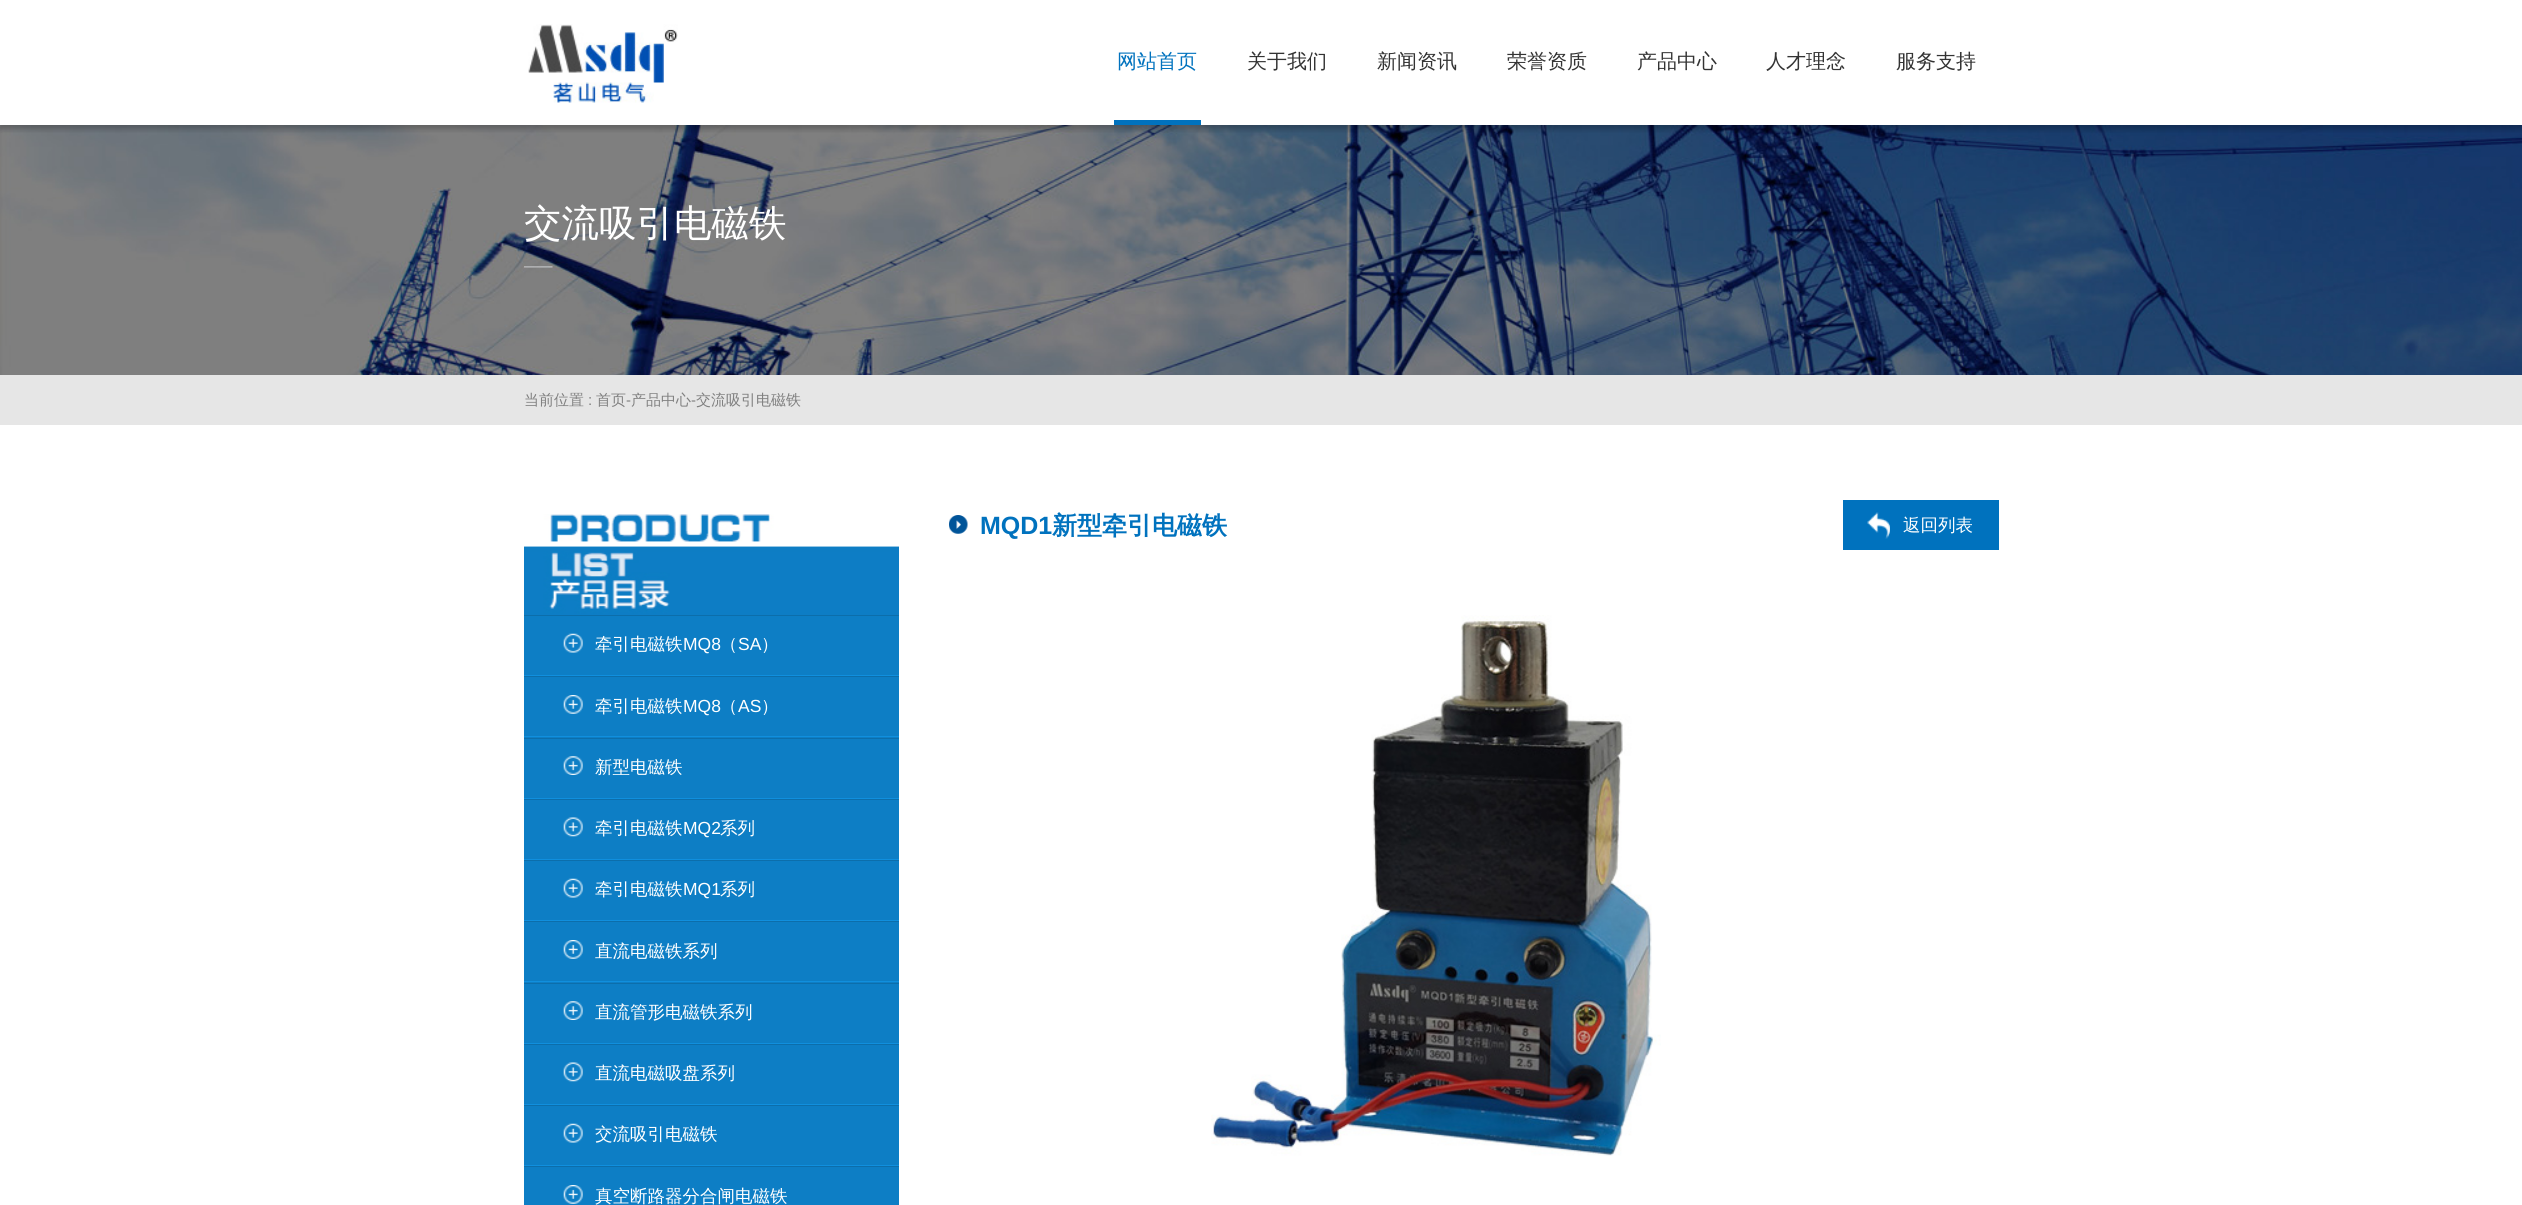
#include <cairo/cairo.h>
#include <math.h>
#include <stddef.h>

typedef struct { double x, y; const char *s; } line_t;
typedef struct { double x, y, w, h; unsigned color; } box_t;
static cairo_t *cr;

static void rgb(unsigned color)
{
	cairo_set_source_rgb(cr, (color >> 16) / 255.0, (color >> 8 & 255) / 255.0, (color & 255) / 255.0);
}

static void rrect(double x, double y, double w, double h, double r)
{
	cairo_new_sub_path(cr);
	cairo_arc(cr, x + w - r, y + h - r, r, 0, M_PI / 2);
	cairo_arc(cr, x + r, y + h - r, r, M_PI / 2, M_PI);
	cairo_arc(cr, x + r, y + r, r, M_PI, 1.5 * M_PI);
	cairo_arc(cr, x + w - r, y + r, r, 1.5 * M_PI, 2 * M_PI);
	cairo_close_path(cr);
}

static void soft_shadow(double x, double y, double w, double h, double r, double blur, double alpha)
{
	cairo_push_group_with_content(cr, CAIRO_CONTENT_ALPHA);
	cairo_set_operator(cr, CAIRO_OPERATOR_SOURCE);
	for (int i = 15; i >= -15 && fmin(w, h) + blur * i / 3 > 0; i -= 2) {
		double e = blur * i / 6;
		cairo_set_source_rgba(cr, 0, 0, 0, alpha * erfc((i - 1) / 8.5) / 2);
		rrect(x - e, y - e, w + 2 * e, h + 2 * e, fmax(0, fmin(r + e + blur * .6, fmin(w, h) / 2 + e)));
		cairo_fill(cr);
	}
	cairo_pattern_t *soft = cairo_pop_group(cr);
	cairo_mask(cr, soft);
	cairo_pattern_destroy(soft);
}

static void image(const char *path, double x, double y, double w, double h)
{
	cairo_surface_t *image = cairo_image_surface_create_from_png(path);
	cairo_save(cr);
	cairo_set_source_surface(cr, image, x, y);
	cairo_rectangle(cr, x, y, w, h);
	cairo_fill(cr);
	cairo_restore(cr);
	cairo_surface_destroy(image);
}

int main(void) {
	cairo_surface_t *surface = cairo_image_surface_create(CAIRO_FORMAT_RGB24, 2522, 1205);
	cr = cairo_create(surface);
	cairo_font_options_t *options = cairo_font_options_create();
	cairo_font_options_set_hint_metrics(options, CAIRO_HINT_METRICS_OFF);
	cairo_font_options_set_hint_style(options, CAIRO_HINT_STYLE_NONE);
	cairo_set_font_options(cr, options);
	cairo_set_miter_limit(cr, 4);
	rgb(0xffffff);
	cairo_paint(cr);
	image("img/2.png", 0, 125, 2522, 250);
	cairo_save(cr);
	cairo_rectangle(cr, 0, 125, 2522, 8);
	cairo_clip(cr);
	rgb(0x000000);
	soft_shadow(0, 4, 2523, 125, 0, 3, 0.25);
	cairo_restore(cr);
	image("img/1.png", 528, 24, 150, 79);
	rgb(0x0072be);
	cairo_rectangle(cr, 1114, 120, 87, 5);
	cairo_fill(cr);
	image("img/3.png", 524, 266, 29, 2);
	rgb(0xe6e6e6);
	cairo_rectangle(cr, 0, 375, 2522, 50);
	cairo_fill(cr);
	image("img/4.png", 949, 515, 19, 19);
	rgb(0x0072be);
	cairo_rectangle(cr, 1843, 500, 156, 50);
	cairo_fill(cr);
	image("img/5.png", 1867, 512, 23, 27);
	image("img/6.png", 1211, 615, 450, 541);
	image("img/7.png", 524, 514, 375, 101);
	{
		static const box_t items[] = {
			{524, 616, 375, 59, 0x0d7ec5},
			{524, 615, 375, 1, 0x0c6eab},
			{524, 675, 375, 1, 0x108fde},
		};
		for (size_t i = 0; i < sizeof items / sizeof *items; i++) {
			rgb(items[i].color);
			cairo_rectangle(cr, items[i].x, items[i].y, items[i].w, items[i].h);
			cairo_fill(cr);
		}
	}
	image("img/8.png", 563, 633, 20, 20);
	{
		static const box_t items[] = {
			{524, 677, 375, 61, 0x0d7ec5},
			{524, 676, 375, 1, 0x0c6eab},
			{524, 736, 375, 1, 0x108fde},
		};
		for (size_t i = 0; i < sizeof items / sizeof *items; i++) {
			rgb(items[i].color);
			cairo_rectangle(cr, items[i].x, items[i].y, items[i].w, items[i].h);
			cairo_fill(cr);
		}
	}
	image("img/9.png", 563, 695, 20, 19);
	{
		static const box_t items[] = {
			{524, 739, 375, 59, 0x0d7ec5},
			{524, 738, 375, 1, 0x0c6eab},
			{524, 798, 375, 1, 0x108fde},
		};
		for (size_t i = 0; i < sizeof items / sizeof *items; i++) {
			rgb(items[i].color);
			cairo_rectangle(cr, items[i].x, items[i].y, items[i].w, items[i].h);
			cairo_fill(cr);
		}
	}
	image("img/10.png", 563, 756, 20, 19);
	{
		static const box_t items[] = {
			{524, 800, 375, 59, 0x0d7ec5},
			{524, 799, 375, 1, 0x0c6eab},
			{524, 859, 375, 1, 0x108fde},
		};
		for (size_t i = 0; i < sizeof items / sizeof *items; i++) {
			rgb(items[i].color);
			cairo_rectangle(cr, items[i].x, items[i].y, items[i].w, items[i].h);
			cairo_fill(cr);
		}
	}
	image("img/11.png", 563, 817, 20, 20);
	{
		static const box_t items[] = {
			{524, 861, 375, 59, 0x0d7ec5},
			{524, 860, 375, 1, 0x0c6eab},
			{524, 920, 375, 1, 0x108fde},
		};
		for (size_t i = 0; i < sizeof items / sizeof *items; i++) {
			rgb(items[i].color);
			cairo_rectangle(cr, items[i].x, items[i].y, items[i].w, items[i].h);
			cairo_fill(cr);
		}
	}
	image("img/8.png", 563, 878, 20, 20);
	{
		static const box_t items[] = {
			{524, 922, 375, 61, 0x0d7ec5},
			{524, 921, 375, 1, 0x0c6eab},
			{524, 981, 375, 1, 0x108fde},
		};
		for (size_t i = 0; i < sizeof items / sizeof *items; i++) {
			rgb(items[i].color);
			cairo_rectangle(cr, items[i].x, items[i].y, items[i].w, items[i].h);
			cairo_fill(cr);
		}
	}
	image("img/9.png", 563, 940, 20, 19);
	{
		static const box_t items[] = {
			{524, 984, 375, 59, 0x0d7ec5},
			{524, 983, 375, 1, 0x0c6eab},
			{524, 1043, 375, 1, 0x108fde},
		};
		for (size_t i = 0; i < sizeof items / sizeof *items; i++) {
			rgb(items[i].color);
			cairo_rectangle(cr, items[i].x, items[i].y, items[i].w, items[i].h);
			cairo_fill(cr);
		}
	}
	image("img/12.png", 563, 1001, 20, 19);
	{
		static const box_t items[] = {
			{524, 1045, 375, 59, 0x0d7ec5},
			{524, 1044, 375, 1, 0x0c6eab},
			{524, 1104, 375, 1, 0x108fde},
		};
		for (size_t i = 0; i < sizeof items / sizeof *items; i++) {
			rgb(items[i].color);
			cairo_rectangle(cr, items[i].x, items[i].y, items[i].w, items[i].h);
			cairo_fill(cr);
		}
	}
	image("img/11.png", 563, 1062, 20, 20);
	{
		static const box_t items[] = {
			{524, 1106, 375, 59, 0x0d7ec5},
			{524, 1105, 375, 1, 0x0c6eab},
			{524, 1165, 375, 1, 0x108fde},
		};
		for (size_t i = 0; i < sizeof items / sizeof *items; i++) {
			rgb(items[i].color);
			cairo_rectangle(cr, items[i].x, items[i].y, items[i].w, items[i].h);
			cairo_fill(cr);
		}
	}
	image("img/8.png", 563, 1123, 20, 20);
	rgb(0x0d7ec5);
	cairo_rectangle(cr, 524, 1167, 375, 38);
	cairo_fill(cr);
	rgb(0x0c6eab);
	cairo_rectangle(cr, 524, 1166, 375, 1);
	cairo_fill(cr);
	image("img/9.png", 563, 1185, 20, 19);
	cairo_select_font_face(cr, "WenQuanYi Zen Hei Medium", CAIRO_FONT_SLANT_NORMAL, CAIRO_FONT_WEIGHT_NORMAL);
	cairo_set_font_size(cr, 20);
	rgb(0x0072be);
	cairo_move_to(cr, 1117, 68);
	cairo_show_text(cr, "网站首页");
	rgb(0x333333);
	{
		static const line_t items[] = {
			{1247, 68, "关于我们"},
			{1377, 68, "新闻资讯"},
			{1507, 68, "荣誉资质"},
			{1637, 68, "产品中心"},
			{1766, 68, "人才理念"},
			{1896, 68, "服务支持"},
		};
		for (size_t i = 0; i < sizeof items / sizeof *items; i++) {
			cairo_move_to(cr, items[i].x, items[i].y);
			cairo_show_text(cr, items[i].s);
		}
	}
	cairo_set_font_size(cr, 37.5);
	rgb(0xffffff);
	cairo_move_to(cr, 524, 236);
	cairo_show_text(cr, "交流吸引电磁铁");
	cairo_set_font_size(cr, 15);
	rgb(0x808080);
	cairo_move_to(cr, 524, 405);
	cairo_show_text(cr, "当前位置");
	cairo_select_font_face(cr, "Liberation Sans", CAIRO_FONT_SLANT_NORMAL, CAIRO_FONT_WEIGHT_NORMAL);
	cairo_move_to(cr, 588, 405);
	cairo_show_text(cr, ":");
	cairo_select_font_face(cr, "WenQuanYi Zen Hei Medium", CAIRO_FONT_SLANT_NORMAL, CAIRO_FONT_WEIGHT_NORMAL);
	cairo_move_to(cr, 596, 405);
	cairo_show_text(cr, "首页");
	cairo_select_font_face(cr, "Liberation Sans", CAIRO_FONT_SLANT_NORMAL, CAIRO_FONT_WEIGHT_NORMAL);
	cairo_move_to(cr, 626, 405);
	cairo_show_text(cr, "-");
	cairo_select_font_face(cr, "WenQuanYi Zen Hei Medium", CAIRO_FONT_SLANT_NORMAL, CAIRO_FONT_WEIGHT_NORMAL);
	cairo_move_to(cr, 631, 405);
	cairo_show_text(cr, "产品中心");
	cairo_select_font_face(cr, "Liberation Sans", CAIRO_FONT_SLANT_NORMAL, CAIRO_FONT_WEIGHT_NORMAL);
	cairo_move_to(cr, 691, 405);
	cairo_show_text(cr, "-");
	cairo_select_font_face(cr, "WenQuanYi Zen Hei Medium", CAIRO_FONT_SLANT_NORMAL, CAIRO_FONT_WEIGHT_NORMAL);
	cairo_move_to(cr, 696, 405);
	cairo_show_text(cr, "交流吸引电磁铁");
	cairo_select_font_face(cr, "Liberation Sans", CAIRO_FONT_SLANT_NORMAL, CAIRO_FONT_WEIGHT_BOLD);
	cairo_set_font_size(cr, 25);
	rgb(0x0072be);
	cairo_move_to(cr, 980, 534);
	cairo_show_text(cr, "MQD1");
	cairo_select_font_face(cr, "WenQuanYi Zen Hei", CAIRO_FONT_SLANT_NORMAL, CAIRO_FONT_WEIGHT_BOLD);
	cairo_move_to(cr, 1052, 534);
	cairo_show_text(cr, "新型牵引电磁铁");
	cairo_select_font_face(cr, "WenQuanYi Zen Hei Medium", CAIRO_FONT_SLANT_NORMAL, CAIRO_FONT_WEIGHT_NORMAL);
	cairo_set_font_size(cr, 17.5);
	rgb(0xffffff);
	cairo_move_to(cr, 1903, 531);
	cairo_show_text(cr, "返回列表");
	cairo_move_to(cr, 595, 650);
	cairo_show_text(cr, "牵引电磁铁");
	cairo_select_font_face(cr, "Liberation Sans", CAIRO_FONT_SLANT_NORMAL, CAIRO_FONT_WEIGHT_NORMAL);
	cairo_move_to(cr, 683, 650);
	cairo_show_text(cr, "MQ8");
	cairo_select_font_face(cr, "WenQuanYi Zen Hei Medium", CAIRO_FONT_SLANT_NORMAL, CAIRO_FONT_WEIGHT_NORMAL);
	cairo_move_to(cr, 720, 650);
	cairo_show_text(cr, "（");
	cairo_select_font_face(cr, "Liberation Sans", CAIRO_FONT_SLANT_NORMAL, CAIRO_FONT_WEIGHT_NORMAL);
	cairo_move_to(cr, 738, 650);
	cairo_show_text(cr, "SA");
	cairo_select_font_face(cr, "WenQuanYi Zen Hei Medium", CAIRO_FONT_SLANT_NORMAL, CAIRO_FONT_WEIGHT_NORMAL);
	cairo_move_to(cr, 761, 650);
	cairo_show_text(cr, "）");
	cairo_move_to(cr, 595, 712);
	cairo_show_text(cr, "牵引电磁铁");
	cairo_select_font_face(cr, "Liberation Sans", CAIRO_FONT_SLANT_NORMAL, CAIRO_FONT_WEIGHT_NORMAL);
	cairo_move_to(cr, 683, 712);
	cairo_show_text(cr, "MQ8");
	cairo_select_font_face(cr, "WenQuanYi Zen Hei Medium", CAIRO_FONT_SLANT_NORMAL, CAIRO_FONT_WEIGHT_NORMAL);
	cairo_move_to(cr, 720, 712);
	cairo_show_text(cr, "（");
	cairo_select_font_face(cr, "Liberation Sans", CAIRO_FONT_SLANT_NORMAL, CAIRO_FONT_WEIGHT_NORMAL);
	cairo_move_to(cr, 738, 712);
	cairo_show_text(cr, "AS");
	cairo_select_font_face(cr, "WenQuanYi Zen Hei Medium", CAIRO_FONT_SLANT_NORMAL, CAIRO_FONT_WEIGHT_NORMAL);
	{
		static const line_t items[] = {
			{761, 712, "）"},
			{595, 773, "新型电磁铁"},
			{595, 834, "牵引电磁铁"},
		};
		for (size_t i = 0; i < sizeof items / sizeof *items; i++) {
			cairo_move_to(cr, items[i].x, items[i].y);
			cairo_show_text(cr, items[i].s);
		}
	}
	cairo_select_font_face(cr, "Liberation Sans", CAIRO_FONT_SLANT_NORMAL, CAIRO_FONT_WEIGHT_NORMAL);
	cairo_move_to(cr, 683, 834);
	cairo_show_text(cr, "MQ2");
	cairo_select_font_face(cr, "WenQuanYi Zen Hei Medium", CAIRO_FONT_SLANT_NORMAL, CAIRO_FONT_WEIGHT_NORMAL);
	cairo_move_to(cr, 720, 834);
	cairo_show_text(cr, "系列");
	cairo_move_to(cr, 595, 895);
	cairo_show_text(cr, "牵引电磁铁");
	cairo_select_font_face(cr, "Liberation Sans", CAIRO_FONT_SLANT_NORMAL, CAIRO_FONT_WEIGHT_NORMAL);
	cairo_move_to(cr, 683, 895);
	cairo_show_text(cr, "MQ1");
	cairo_select_font_face(cr, "WenQuanYi Zen Hei Medium", CAIRO_FONT_SLANT_NORMAL, CAIRO_FONT_WEIGHT_NORMAL);
	{
		static const line_t items[] = {
			{720, 895, "系列"},
			{595, 957, "直流电磁铁系列"},
			{595, 1018, "直流管形电磁铁系列"},
			{595, 1079, "直流电磁吸盘系列"},
			{595, 1140, "交流吸引电磁铁"},
			{595, 1202, "真空断路器分合闸电磁铁"},
		};
		for (size_t i = 0; i < sizeof items / sizeof *items; i++) {
			cairo_move_to(cr, items[i].x, items[i].y);
			cairo_show_text(cr, items[i].s);
		}
	}
	cairo_surface_write_to_png(surface, "page.png");
	cairo_font_options_destroy(options);
	cairo_destroy(cr);
	cairo_surface_destroy(surface);
	return 0;
}
